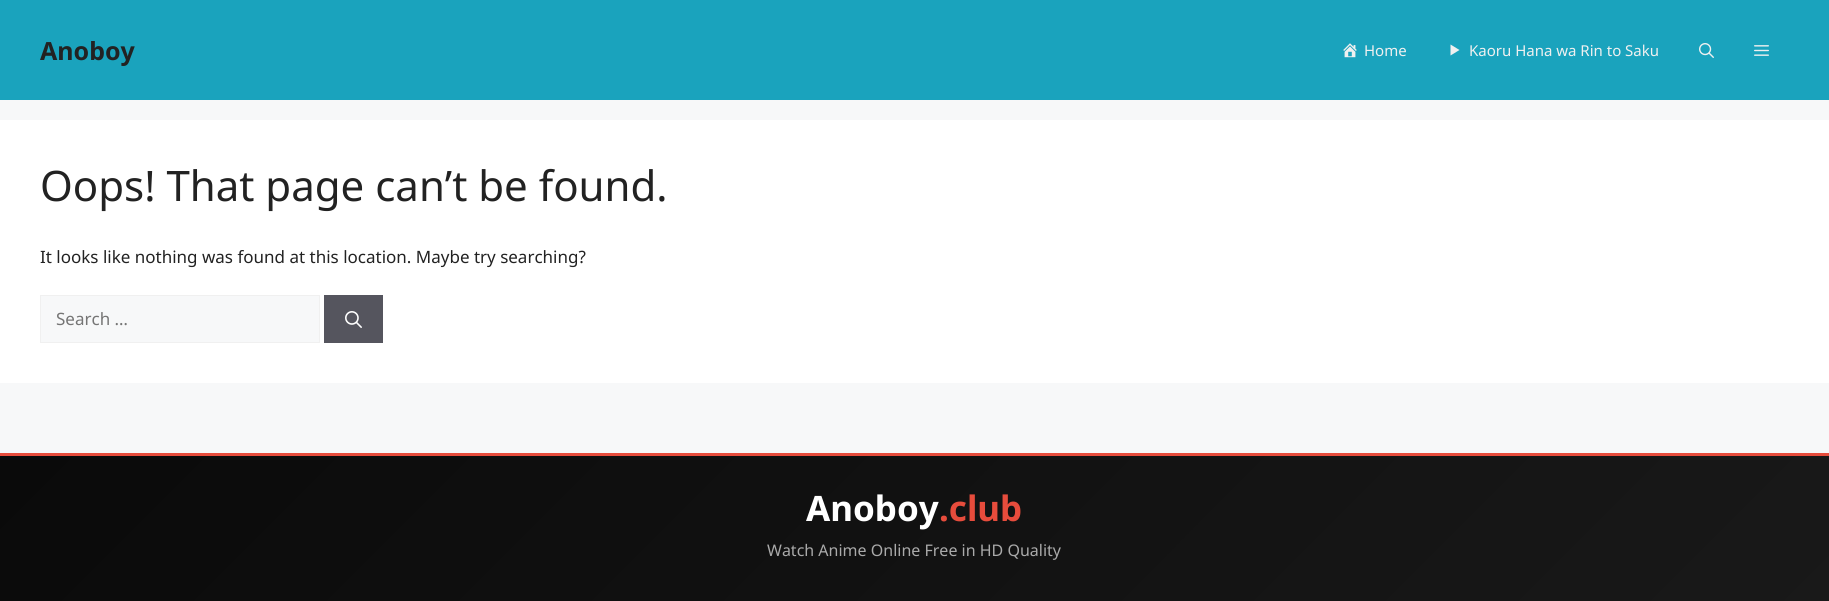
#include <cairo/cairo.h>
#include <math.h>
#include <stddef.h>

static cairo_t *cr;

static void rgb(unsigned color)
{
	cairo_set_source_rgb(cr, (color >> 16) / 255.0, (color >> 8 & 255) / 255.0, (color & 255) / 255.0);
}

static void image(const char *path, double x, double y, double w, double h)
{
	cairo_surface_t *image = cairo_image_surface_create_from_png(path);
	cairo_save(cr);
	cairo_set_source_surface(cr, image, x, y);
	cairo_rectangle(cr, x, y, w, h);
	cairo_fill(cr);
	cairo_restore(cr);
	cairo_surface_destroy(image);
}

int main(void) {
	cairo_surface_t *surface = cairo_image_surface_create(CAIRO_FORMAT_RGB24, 1829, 601);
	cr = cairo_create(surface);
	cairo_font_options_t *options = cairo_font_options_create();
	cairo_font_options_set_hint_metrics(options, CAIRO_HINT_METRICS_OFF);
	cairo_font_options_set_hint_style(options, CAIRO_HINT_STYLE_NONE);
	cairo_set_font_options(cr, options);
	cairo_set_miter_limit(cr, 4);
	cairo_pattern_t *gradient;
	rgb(0xf7f8f9);
	cairo_paint(cr);
	rgb(0x1aa3bd);
	cairo_rectangle(cr, 0, 0, 1829, 100);
	cairo_fill(cr);
	image("img/1.png", 1343, 43, 14, 15);
	rgb(0xf0f0f0);
	cairo_new_path(cr);
	cairo_move_to(cr, 1450.5, 44.5);
	cairo_line_to(cr, 1459.5, 50);
	cairo_line_to(cr, 1450.5, 55.5);
	cairo_close_path(cr);
	cairo_fill(cr);
	image("img/2.png", 1699, 43, 15, 15);
	image("img/3.png", 1754, 45, 15, 11);
	rgb(0xffffff);
	cairo_rectangle(cr, 0, 120, 1829, 263);
	cairo_fill(cr);
	rgb(0xf7f8f9);
	cairo_rectangle(cr, 40.5, 295.5, 279, 47);
	cairo_fill_preserve(cr);
	rgb(0xf0f0f0);
	cairo_set_line_width(cr, 1);
	cairo_stroke(cr);
	rgb(0x55555e);
	cairo_rectangle(cr, 324, 295, 59, 48);
	cairo_fill(cr);
	image("img/4.png", 345, 311, 17, 17);
	gradient = cairo_pattern_create_linear(382, 74, 1447, 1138);
	cairo_pattern_add_color_stop_rgba(gradient, 0, 0.039, 0.039, 0.039, 1);
	cairo_pattern_add_color_stop_rgba(gradient, 1, 0.102, 0.102, 0.102, 1);
	cairo_set_source(cr, gradient);
	cairo_pattern_destroy(gradient);
	cairo_rectangle(cr, 0, 456, 1829, 145);
	cairo_fill(cr);
	rgb(0xe74c3c);
	cairo_rectangle(cr, 0, 453, 1829, 3);
	cairo_fill(cr);
	cairo_select_font_face(cr, "Noto Sans", CAIRO_FONT_SLANT_NORMAL, CAIRO_FONT_WEIGHT_BOLD);
	cairo_set_font_size(cr, 25);
	rgb(0x222222);
	cairo_move_to(cr, 40, 60);
	cairo_show_text(cr, "Anoboy");
	cairo_select_font_face(cr, "Noto Sans", CAIRO_FONT_SLANT_NORMAL, CAIRO_FONT_WEIGHT_NORMAL);
	cairo_set_font_size(cr, 15);
	rgb(0xf0f0f0);
	cairo_move_to(cr, 1364, 56);
	cairo_show_text(cr, "Home");
	cairo_move_to(cr, 1469, 56);
	cairo_show_text(cr, "Kaoru Hana wa Rin to Saku");
	cairo_set_font_size(cr, 42);
	rgb(0x222222);
	cairo_move_to(cr, 40, 201);
	cairo_show_text(cr, "Oops! That page can’t be found.");
	cairo_set_font_size(cr, 17);
	cairo_move_to(cr, 40, 263);
	cairo_show_text(cr, "It looks like nothing was found at this location. Maybe try searching?");
	rgb(0x757575);
	cairo_move_to(cr, 56, 325);
	cairo_show_text(cr, "Search …");
	cairo_select_font_face(cr, "Noto Sans", CAIRO_FONT_SLANT_NORMAL, CAIRO_FONT_WEIGHT_BOLD);
	cairo_set_font_size(cr, 35);
	rgb(0xffffff);
	cairo_move_to(cr, 806, 521);
	cairo_show_text(cr, "Anoboy");
	rgb(0xe74c3c);
	cairo_move_to(cr, 939, 521);
	cairo_show_text(cr, ".club");
	cairo_select_font_face(cr, "Noto Sans", CAIRO_FONT_SLANT_NORMAL, CAIRO_FONT_WEIGHT_NORMAL);
	cairo_set_font_size(cr, 16);
	rgb(0xaaaaaa);
	cairo_move_to(cr, 767, 556);
	cairo_show_text(cr, "Watch Anime Online Free in HD Quality");
	cairo_surface_write_to_png(surface, "page.png");
	cairo_font_options_destroy(options);
	cairo_destroy(cr);
	cairo_surface_destroy(surface);
	return 0;
}
